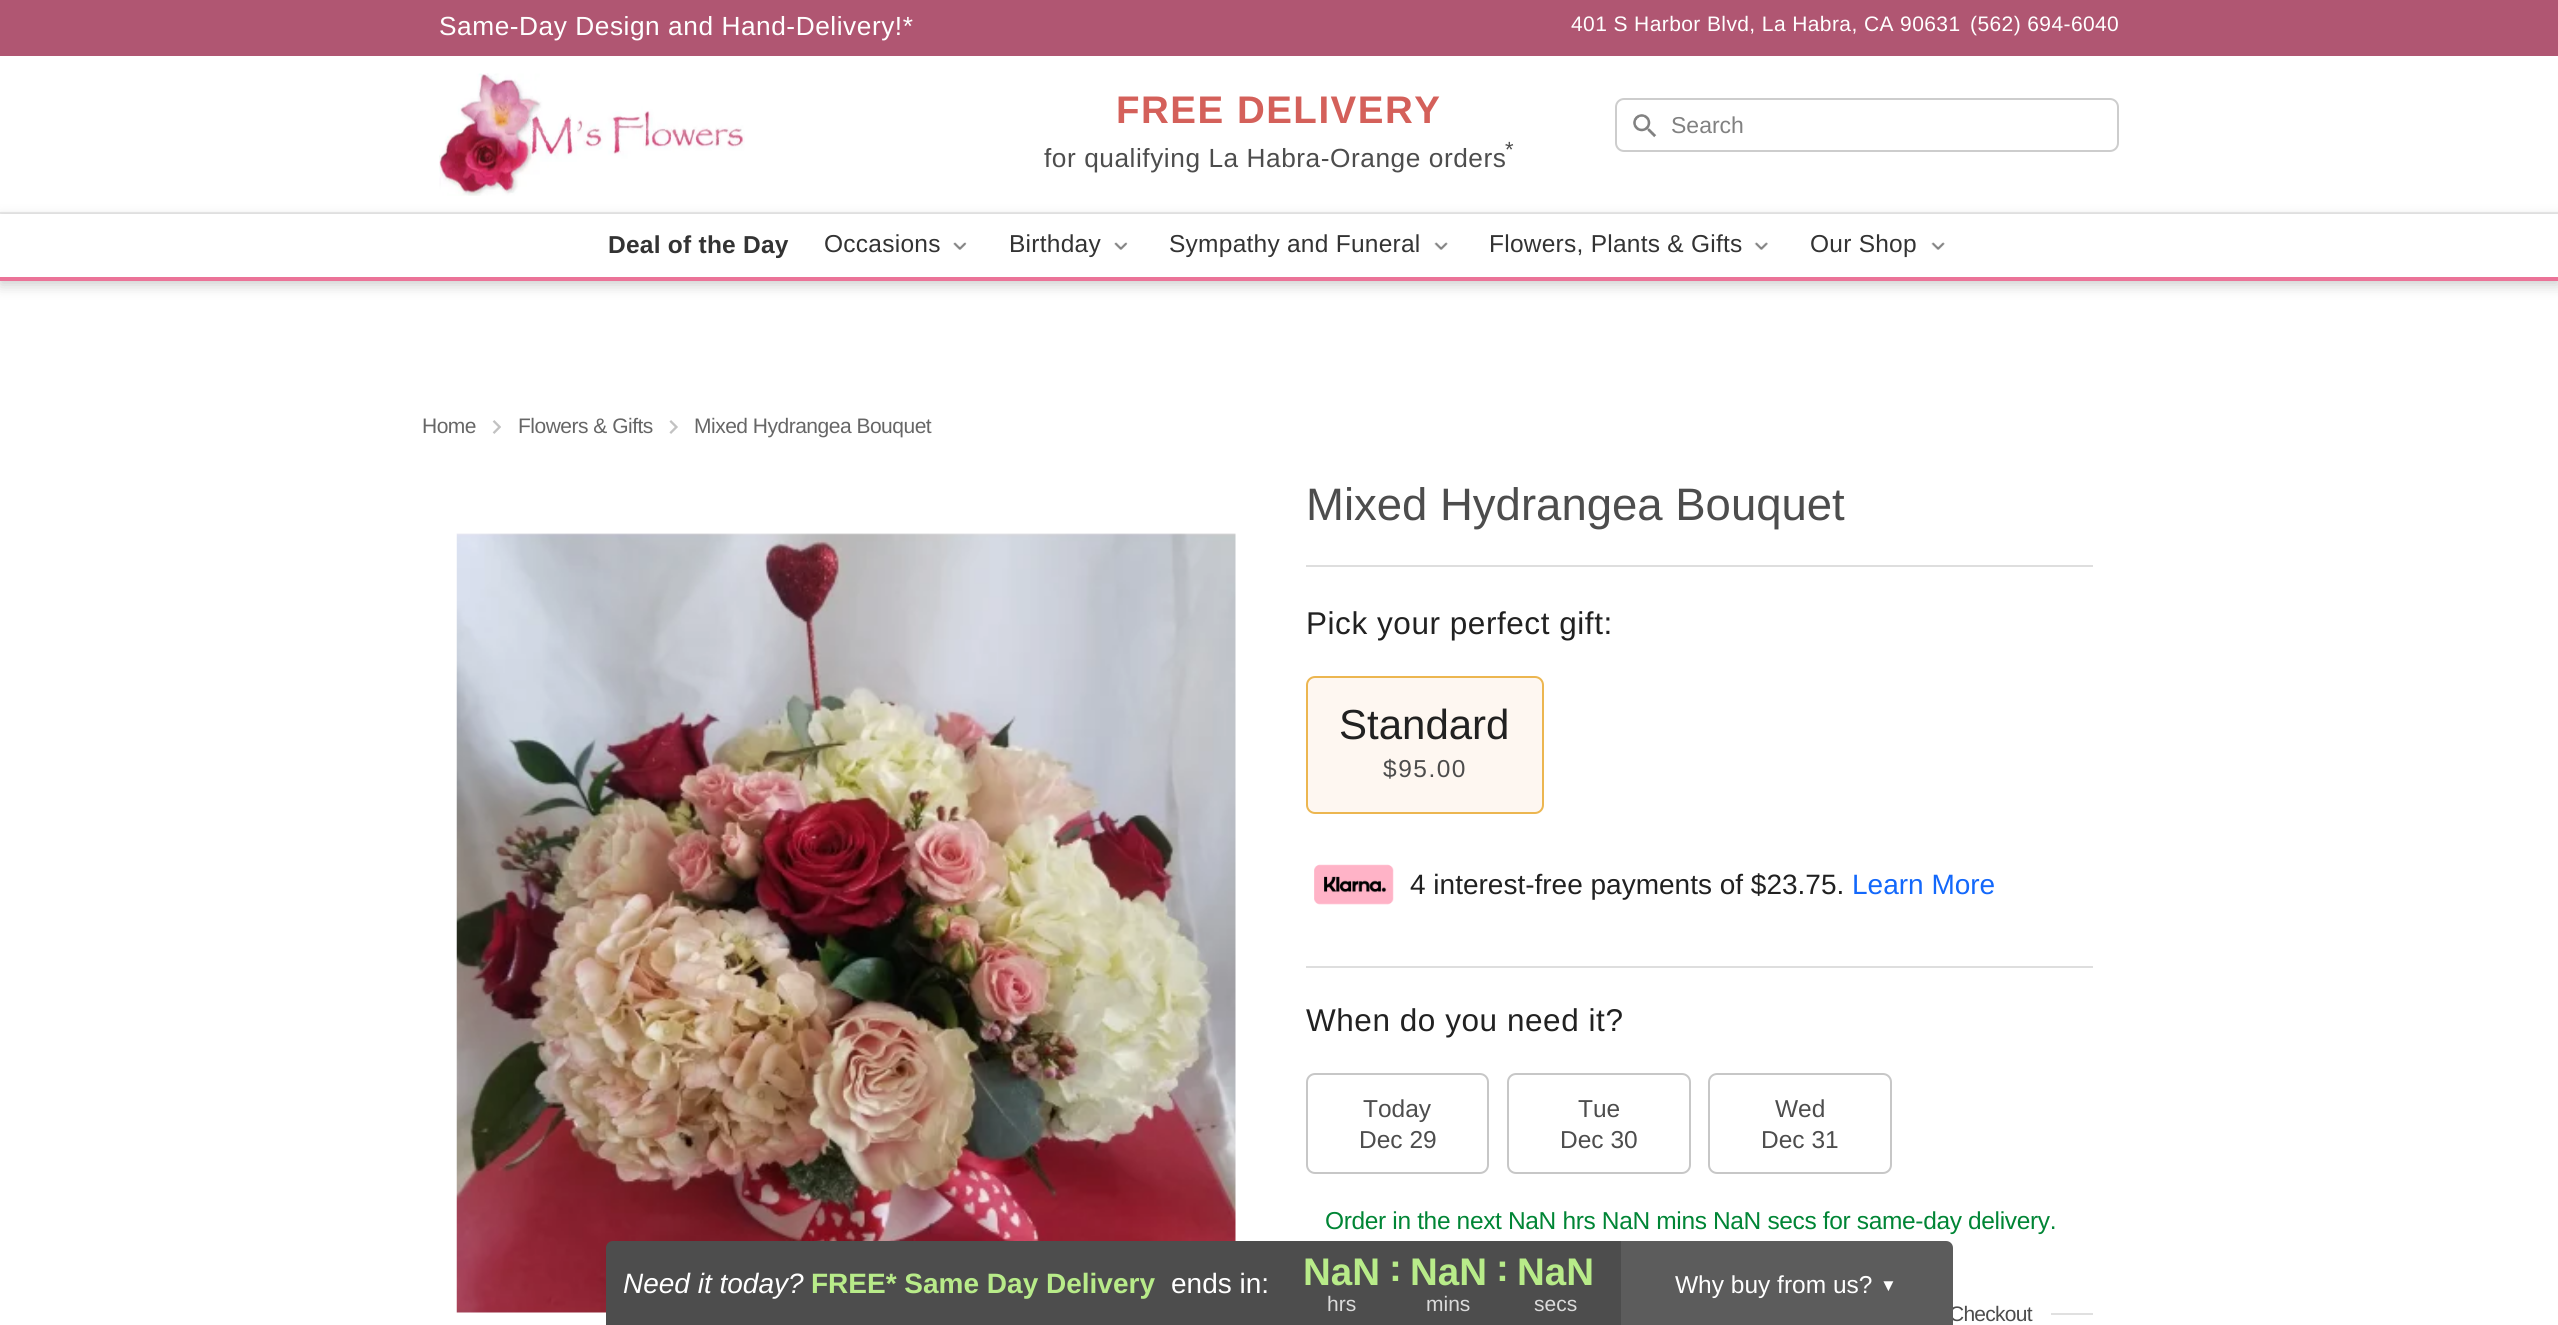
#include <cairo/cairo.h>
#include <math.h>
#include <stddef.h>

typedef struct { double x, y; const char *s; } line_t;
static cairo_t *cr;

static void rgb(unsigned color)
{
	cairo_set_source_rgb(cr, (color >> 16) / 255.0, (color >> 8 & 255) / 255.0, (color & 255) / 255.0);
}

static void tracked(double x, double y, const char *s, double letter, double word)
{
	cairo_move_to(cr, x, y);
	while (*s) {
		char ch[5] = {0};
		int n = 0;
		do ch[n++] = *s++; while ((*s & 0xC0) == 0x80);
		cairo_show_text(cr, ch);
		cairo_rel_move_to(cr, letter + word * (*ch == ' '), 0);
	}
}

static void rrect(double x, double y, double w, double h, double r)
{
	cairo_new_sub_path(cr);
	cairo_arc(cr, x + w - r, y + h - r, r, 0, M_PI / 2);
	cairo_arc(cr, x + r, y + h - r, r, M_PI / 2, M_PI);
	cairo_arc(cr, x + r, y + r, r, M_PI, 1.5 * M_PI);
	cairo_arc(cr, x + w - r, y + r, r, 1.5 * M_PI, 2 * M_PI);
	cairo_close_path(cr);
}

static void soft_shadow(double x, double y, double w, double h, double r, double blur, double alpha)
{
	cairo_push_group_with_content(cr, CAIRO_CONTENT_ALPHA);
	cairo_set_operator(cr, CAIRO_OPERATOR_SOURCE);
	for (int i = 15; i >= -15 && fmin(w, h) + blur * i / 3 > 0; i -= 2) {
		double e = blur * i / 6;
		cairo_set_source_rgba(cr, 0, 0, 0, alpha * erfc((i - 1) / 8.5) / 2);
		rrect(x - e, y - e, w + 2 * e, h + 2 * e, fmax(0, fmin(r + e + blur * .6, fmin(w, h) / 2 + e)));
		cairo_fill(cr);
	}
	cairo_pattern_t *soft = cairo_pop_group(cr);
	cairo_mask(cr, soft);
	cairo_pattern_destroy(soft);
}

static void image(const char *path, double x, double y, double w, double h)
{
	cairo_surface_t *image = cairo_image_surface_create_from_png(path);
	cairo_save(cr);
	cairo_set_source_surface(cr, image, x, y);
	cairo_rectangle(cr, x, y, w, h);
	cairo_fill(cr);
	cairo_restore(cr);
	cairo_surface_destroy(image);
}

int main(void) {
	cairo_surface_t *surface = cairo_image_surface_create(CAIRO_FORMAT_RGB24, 2558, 1325);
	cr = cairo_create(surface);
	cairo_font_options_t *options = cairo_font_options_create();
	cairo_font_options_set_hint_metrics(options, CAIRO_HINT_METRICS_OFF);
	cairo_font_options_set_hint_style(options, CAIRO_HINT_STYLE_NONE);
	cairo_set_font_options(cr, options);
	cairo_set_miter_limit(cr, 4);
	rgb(0xffffff);
	cairo_paint(cr);
	rgb(0xb05672);
	cairo_rectangle(cr, 0, 0, 2558, 56);
	cairo_fill(cr);
	rgb(0xeaeaea);
	cairo_rectangle(cr, 0, 212, 2558, 2);
	cairo_fill(cr);
	image("img/1.png", 439, 73, 306, 123);
	image("img/2.png", 1633, 114, 24, 24);
	rrect(1616, 99, 502, 52, 8);
	rgb(0xcdcdcd);
	cairo_stroke(cr);
	cairo_save(cr);
	cairo_set_fill_rule(cr, CAIRO_FILL_RULE_EVEN_ODD);
	cairo_new_path(cr);
	cairo_move_to(cr, 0, 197);
	cairo_line_to(cr, 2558, 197);
	cairo_line_to(cr, 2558, 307);
	cairo_line_to(cr, 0, 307);
	cairo_close_path(cr);
	cairo_move_to(cr, 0, 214);
	cairo_line_to(cr, 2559, 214);
	cairo_line_to(cr, 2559, 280);
	cairo_line_to(cr, 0, 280);
	cairo_close_path(cr);
	cairo_clip(cr);
	rgb(0x000000);
	soft_shadow(0, 219, 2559, 66, 0, 7, 0.2);
	cairo_restore(cr);
	rgb(0xeb7398);
	cairo_rectangle(cr, 0, 277, 2558, 4);
	cairo_fill(cr);
	image("img/3.png", 953, 242, 14, 8);
	image("img/3.png", 1114, 242, 14, 8);
	image("img/4.png", 1434, 242, 14, 8);
	image("img/5.png", 1754, 242, 14, 8);
	image("img/4.png", 1931, 242, 14, 8);
	image("img/6.png", 492, 420, 9, 14);
	image("img/7.png", 669, 420, 9, 14);
	image("img/8.png", 456, 533, 780, 780);
	rgb(0xdedede);
	cairo_rectangle(cr, 1306, 565, 787, 2);
	cairo_fill(cr);
	rgb(0xfef7f1);
	rrect(1307, 677, 236, 136, 8);
	cairo_fill_preserve(cr);
	rgb(0xecb650);
	cairo_stroke(cr);
	image("img/9.png", 1314, 864, 80, 41);
	rgb(0xdedede);
	cairo_rectangle(cr, 1306, 966, 787, 2);
	cairo_fill(cr);
	rrect(1307, 1074, 181, 99, 8);
	rgb(0xc7c7c7);
	cairo_stroke(cr);
	rrect(1508, 1074, 182, 99, 8);
	cairo_stroke(cr);
	rrect(1709, 1074, 182, 99, 8);
	cairo_stroke(cr);
	rgb(0xe0e0e0);
	cairo_rectangle(cr, 2051, 1313, 42, 2);
	cairo_fill(cr);
	rgb(0x4d4d4d);
	cairo_new_path(cr);
	cairo_move_to(cr, 613, 1241);
	cairo_line_to(cr, 1621, 1241);
	cairo_line_to(cr, 1621, 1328);
	cairo_line_to(cr, 606, 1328);
	cairo_line_to(cr, 606, 1248);
	cairo_curve_to(cr, 606, 1244, 609, 1241, 613, 1241);
	cairo_close_path(cr);
	cairo_fill(cr);
	cairo_select_font_face(cr, "Liberation Sans", CAIRO_FONT_SLANT_NORMAL, CAIRO_FONT_WEIGHT_NORMAL);
	cairo_set_font_size(cr, 26.25);
	rgb(0xffffff);
	tracked(439, 35, "Same-Day Design and Hand-Delivery!*", 0.55, 0);
	cairo_set_font_size(cr, 21);
	tracked(1571, 31, "401 S Harbor Blvd, La Habra, CA 90631", 0.4, 0);
	tracked(1970, 31, "(562) 694-6040", 0.4, 0);
	cairo_select_font_face(cr, "Liberation Sans", CAIRO_FONT_SLANT_NORMAL, CAIRO_FONT_WEIGHT_BOLD);
	cairo_set_font_size(cr, 38.5);
	rgb(0xd4605a);
	tracked(1116, 123, "FREE DELIVERY", 1.5, 0);
	cairo_select_font_face(cr, "Liberation Sans", CAIRO_FONT_SLANT_NORMAL, CAIRO_FONT_WEIGHT_NORMAL);
	cairo_set_font_size(cr, 22);
	rgb(0x4d4d4d);
	tracked(1505, 157, "*", 0.55, 0);
	cairo_set_font_size(cr, 26.25);
	tracked(1044, 167, "for qualifying La Habra-Orange orders", 0.55, 0);
	cairo_set_font_size(cr, 23);
	rgb(0x818181);
	cairo_move_to(cr, 1671, 133);
	cairo_show_text(cr, "Search");
	cairo_select_font_face(cr, "Liberation Sans", CAIRO_FONT_SLANT_NORMAL, CAIRO_FONT_WEIGHT_BOLD);
	cairo_set_font_size(cr, 24.5);
	rgb(0x333333);
	tracked(608, 253, "Deal of the Day", 0.25, 0);
	cairo_select_font_face(cr, "Liberation Sans", CAIRO_FONT_SLANT_NORMAL, CAIRO_FONT_WEIGHT_NORMAL);
	{
		static const line_t items[] = {
			{824, 252, "Occasions"},
			{1009, 252, "Birthday"},
			{1169, 252, "Sympathy and Funeral"},
			{1489, 252, "Flowers, Plants & Gifts"},
			{1810, 252, "Our Shop"},
		};
		for (size_t i = 0; i < sizeof items / sizeof *items; i++) {
			tracked(items[i].x, items[i].y, items[i].s, 0.25, 0);
		}
	}
	cairo_set_font_size(cr, 21);
	rgb(0x666666);
	{
		static const line_t items[] = {
			{422, 433, "Home"},
			{518, 433, "Flowers & Gifts"},
			{694, 433, "Mixed Hydrangea Bouquet"},
		};
		for (size_t i = 0; i < sizeof items / sizeof *items; i++) {
			tracked(items[i].x, items[i].y, items[i].s, -0.5, 0);
		}
	}
	cairo_set_font_size(cr, 45.5);
	rgb(0x4d4d4d);
	cairo_move_to(cr, 1306, 520);
	cairo_show_text(cr, "Mixed Hydrangea Bouquet");
	cairo_set_font_size(cr, 31.5);
	rgb(0x212121);
	tracked(1306, 634, "Pick your perfect gift:", 0.55, 0);
	cairo_set_font_size(cr, 42);
	cairo_move_to(cr, 1339, 739);
	cairo_show_text(cr, "Standard");
	cairo_set_font_size(cr, 24.5);
	rgb(0x4d4d4d);
	tracked(1383, 777, "$95.00", 1.5, 0);
	cairo_set_font_size(cr, 28);
	rgb(0x212121);
	cairo_move_to(cr, 1410, 894);
	cairo_show_text(cr, "4 interest-free payments of $23.75.");
	rgb(0x1368fb);
	cairo_move_to(cr, 1852, 894);
	cairo_show_text(cr, "Learn More");
	cairo_set_font_size(cr, 31.5);
	rgb(0x212121);
	tracked(1306, 1031, "When do you need it?", 0.55, 0);
	cairo_set_font_size(cr, 24.5);
	rgb(0x4d4d4d);
	{
		static const line_t items[] = {
			{1363, 1117, "Today"},
			{1359, 1148, "Dec 29"},
			{1578, 1117, "Tue"},
			{1560, 1148, "Dec 30"},
			{1775, 1117, "Wed"},
			{1761, 1148, "Dec 31"},
		};
		for (size_t i = 0; i < sizeof items / sizeof *items; i++) {
			cairo_move_to(cr, items[i].x, items[i].y);
			cairo_show_text(cr, items[i].s);
		}
	}
	rgb(0x008535);
	tracked(1325, 1229, "Order in the next NaN hrs NaN mins NaN secs for same-day delivery.", -0.35, 0);
	cairo_set_font_size(cr, 21);
	rgb(0x4d4d4d);
	tracked(1949, 1321, "Checkout", -0.75, 0);
	cairo_select_font_face(cr, "Liberation Sans", CAIRO_FONT_SLANT_ITALIC, CAIRO_FONT_WEIGHT_NORMAL);
	cairo_set_font_size(cr, 28);
	rgb(0xffffff);
	cairo_move_to(cr, 623, 1293);
	cairo_show_text(cr, "Need it today?");
	cairo_select_font_face(cr, "Liberation Sans", CAIRO_FONT_SLANT_NORMAL, CAIRO_FONT_WEIGHT_BOLD);
	rgb(0xb8eb89);
	cairo_move_to(cr, 811, 1293);
	cairo_show_text(cr, "FREE* Same Day Delivery");
	cairo_select_font_face(cr, "Liberation Sans", CAIRO_FONT_SLANT_NORMAL, CAIRO_FONT_WEIGHT_NORMAL);
	rgb(0xffffff);
	cairo_move_to(cr, 1171, 1293);
	cairo_show_text(cr, "ends in:");
	cairo_select_font_face(cr, "Liberation Sans", CAIRO_FONT_SLANT_NORMAL, CAIRO_FONT_WEIGHT_BOLD);
	cairo_set_font_size(cr, 38.5);
	rgb(0xb8eb89);
	cairo_move_to(cr, 1303, 1285);
	cairo_show_text(cr, "NaN");
	cairo_select_font_face(cr, "Liberation Sans", CAIRO_FONT_SLANT_NORMAL, CAIRO_FONT_WEIGHT_NORMAL);
	cairo_set_font_size(cr, 21);
	rgb(0xdbdbdb);
	cairo_move_to(cr, 1327, 1311);
	cairo_show_text(cr, "hrs");
	cairo_select_font_face(cr, "Liberation Sans", CAIRO_FONT_SLANT_NORMAL, CAIRO_FONT_WEIGHT_BOLD);
	cairo_set_font_size(cr, 38.5);
	rgb(0xb8eb89);
	cairo_move_to(cr, 1389, 1281);
	cairo_show_text(cr, ":");
	cairo_move_to(cr, 1410, 1285);
	cairo_show_text(cr, "NaN");
	cairo_select_font_face(cr, "Liberation Sans", CAIRO_FONT_SLANT_NORMAL, CAIRO_FONT_WEIGHT_NORMAL);
	cairo_set_font_size(cr, 21);
	rgb(0xdbdbdb);
	cairo_move_to(cr, 1426, 1311);
	cairo_show_text(cr, "mins");
	cairo_select_font_face(cr, "Liberation Sans", CAIRO_FONT_SLANT_NORMAL, CAIRO_FONT_WEIGHT_BOLD);
	cairo_set_font_size(cr, 38.5);
	rgb(0xb8eb89);
	cairo_move_to(cr, 1496, 1281);
	cairo_show_text(cr, ":");
	cairo_move_to(cr, 1517, 1285);
	cairo_show_text(cr, "NaN");
	cairo_select_font_face(cr, "Liberation Sans", CAIRO_FONT_SLANT_NORMAL, CAIRO_FONT_WEIGHT_NORMAL);
	cairo_set_font_size(cr, 21);
	rgb(0xdbdbdb);
	cairo_move_to(cr, 1534, 1311);
	cairo_show_text(cr, "secs");
	rgb(0x5c5c5c);
	cairo_new_path(cr);
	cairo_move_to(cr, 1621, 1241);
	cairo_line_to(cr, 1946, 1241);
	cairo_curve_to(cr, 1950, 1241, 1953, 1244, 1953, 1248);
	cairo_line_to(cr, 1953, 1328);
	cairo_line_to(cr, 1621, 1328);
	cairo_close_path(cr);
	cairo_fill(cr);
	cairo_set_font_size(cr, 24.5);
	rgb(0xffffff);
	cairo_move_to(cr, 1675, 1293);
	cairo_show_text(cr, "Why buy from us?");
	cairo_set_font_size(cr, 17);
	cairo_move_to(cr, 1880, 1291);
	cairo_show_text(cr, "▼");
	cairo_surface_write_to_png(surface, "page.png");
	cairo_font_options_destroy(options);
	cairo_destroy(cr);
	cairo_surface_destroy(surface);
	return 0;
}
